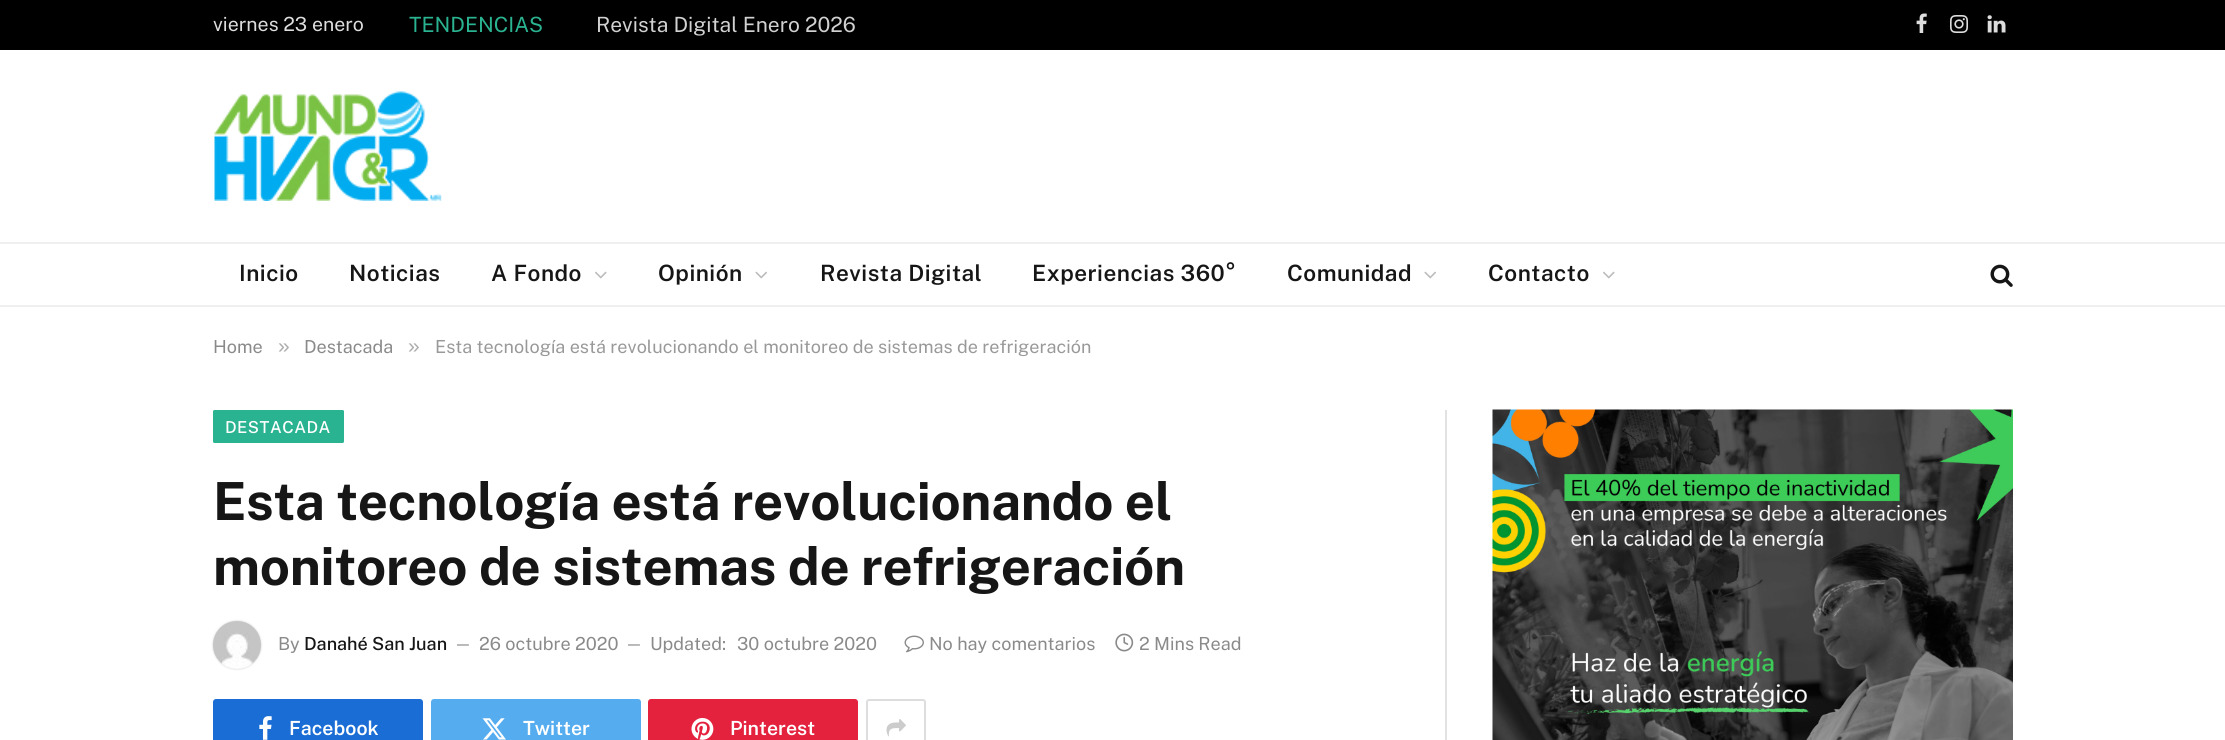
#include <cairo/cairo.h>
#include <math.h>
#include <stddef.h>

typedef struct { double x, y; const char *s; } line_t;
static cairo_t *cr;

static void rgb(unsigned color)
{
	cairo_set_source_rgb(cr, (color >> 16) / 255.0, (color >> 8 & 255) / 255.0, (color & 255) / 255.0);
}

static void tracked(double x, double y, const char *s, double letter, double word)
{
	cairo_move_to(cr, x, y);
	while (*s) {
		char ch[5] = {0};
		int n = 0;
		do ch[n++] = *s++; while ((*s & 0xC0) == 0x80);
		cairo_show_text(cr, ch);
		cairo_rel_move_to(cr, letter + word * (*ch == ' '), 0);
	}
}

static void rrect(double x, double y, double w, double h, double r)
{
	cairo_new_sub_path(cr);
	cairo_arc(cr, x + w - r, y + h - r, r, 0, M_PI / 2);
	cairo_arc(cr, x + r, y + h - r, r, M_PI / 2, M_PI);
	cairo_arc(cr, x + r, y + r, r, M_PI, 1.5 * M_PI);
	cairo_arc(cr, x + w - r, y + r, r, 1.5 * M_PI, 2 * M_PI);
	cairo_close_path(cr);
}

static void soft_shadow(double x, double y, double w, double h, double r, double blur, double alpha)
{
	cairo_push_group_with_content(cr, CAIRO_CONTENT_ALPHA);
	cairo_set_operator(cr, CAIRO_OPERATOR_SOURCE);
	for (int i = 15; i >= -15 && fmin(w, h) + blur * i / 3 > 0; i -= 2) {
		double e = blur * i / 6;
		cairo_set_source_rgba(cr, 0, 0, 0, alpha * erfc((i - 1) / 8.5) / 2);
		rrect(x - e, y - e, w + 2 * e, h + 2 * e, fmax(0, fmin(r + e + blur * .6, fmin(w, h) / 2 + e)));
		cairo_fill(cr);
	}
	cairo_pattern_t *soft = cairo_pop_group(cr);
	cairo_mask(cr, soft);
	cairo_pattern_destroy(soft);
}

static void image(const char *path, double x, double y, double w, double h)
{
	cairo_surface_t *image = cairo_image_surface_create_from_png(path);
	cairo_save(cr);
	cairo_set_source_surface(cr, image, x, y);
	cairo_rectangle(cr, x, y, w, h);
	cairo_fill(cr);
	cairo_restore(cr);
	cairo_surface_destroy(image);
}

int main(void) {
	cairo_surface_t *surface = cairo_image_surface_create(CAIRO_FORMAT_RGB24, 2225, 740);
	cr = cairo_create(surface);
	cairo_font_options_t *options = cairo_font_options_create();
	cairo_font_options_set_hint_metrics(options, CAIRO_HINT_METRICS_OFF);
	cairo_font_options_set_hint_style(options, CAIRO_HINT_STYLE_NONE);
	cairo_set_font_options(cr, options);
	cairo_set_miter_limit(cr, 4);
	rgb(0xffffff);
	cairo_paint(cr);
	rgb(0x000000);
	cairo_rectangle(cr, 0, 0, 2225, 50);
	cairo_fill(cr);
	image("img/1.png", 1916, 13, 11, 20);
	image("img/2.png", 1950, 15, 18, 18);
	image("img/3.png", 1987, 15, 19, 18);
	image("img/4.png", 214, 91, 228, 110);
	rgb(0xefefef);
	cairo_rectangle(cr, 0, 242, 2225, 2);
	cairo_fill(cr);
	cairo_rectangle(cr, 0, 305, 2225, 2);
	cairo_fill(cr);
	image("img/5.png", 595, 271, 12, 8);
	image("img/6.png", 755, 271, 12, 8);
	image("img/6.png", 1424, 271, 12, 8);
	image("img/5.png", 1603, 271, 12, 8);
	image("img/7.png", 1990, 264, 23, 23);
	rgb(0x2ab391);
	rrect(213, 410, 131, 33, 1.5);
	cairo_fill(cr);
	rgb(0x000000);
	soft_shadow(213, 621, 48, 48, 24, 1, 0.2);
	image("img/8.png", 213, 621, 48, 48);
	image("img/9.png", 904, 635, 20, 18);
	image("img/10.png", 1115, 633, 19, 19);
	rgb(0x1a6dd4);
	rrect(213, 699, 210, 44, 3);
	cairo_fill(cr);
	image("img/11.png", 259, 716, 13, 24);
	rgb(0x55acef);
	rrect(431, 699, 210, 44, 3);
	cairo_fill(cr);
	image("img/12.png", 482, 718, 24, 22);
	rgb(0xe4223e);
	rrect(648, 699, 210, 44, 3);
	cairo_fill(cr);
	image("img/13.png", 691, 718, 23, 22);
	rrect(867, 700, 58, 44, 2);
	rgb(0xdddddd);
	cairo_stroke(cr);
	image("img/14.png", 886, 719, 20, 18);
	rgb(0xe2e2e2);
	cairo_rectangle(cr, 1445, 410, 2, 330);
	cairo_fill(cr);
	image("img/15.png", 1492, 409, 521, 331);
	cairo_select_font_face(cr, "Public Sans", CAIRO_FONT_SLANT_NORMAL, CAIRO_FONT_WEIGHT_NORMAL);
	cairo_set_font_size(cr, 19.5);
	rgb(0xdddddd);
	cairo_move_to(cr, 213, 31);
	cairo_show_text(cr, "viernes 23 enero");
	cairo_set_font_size(cr, 21);
	rgb(0x2ab391);
	cairo_move_to(cr, 409, 32);
	cairo_show_text(cr, "TENDENCIAS");
	rgb(0xd1d1d1);
	cairo_move_to(cr, 596, 32);
	cairo_show_text(cr, "Revista Digital Enero 2026");
	cairo_select_font_face(cr, "Public Sans SemiBold", CAIRO_FONT_SLANT_NORMAL, CAIRO_FONT_WEIGHT_NORMAL);
	cairo_set_font_size(cr, 22.5);
	rgb(0x161616);
	{
		static const line_t items[] = {
			{239, 281, "Inicio"},
			{349, 281, "Noticias"},
			{491, 281, "A Fondo"},
			{658, 281, "Opinión"},
			{820, 281, "Revista Digital"},
			{1032, 281, "Experiencias 360°"},
			{1287, 281, "Comunidad"},
			{1488, 281, "Contacto"},
		};
		for (size_t i = 0; i < sizeof items / sizeof *items; i++) {
			tracked(items[i].x, items[i].y, items[i].s, 0.5, 0);
		}
	}
	cairo_select_font_face(cr, "Public Sans", CAIRO_FONT_SLANT_NORMAL, CAIRO_FONT_WEIGHT_NORMAL);
	cairo_set_font_size(cr, 18);
	rgb(0x8a8a8a);
	cairo_move_to(cr, 213, 353);
	cairo_show_text(cr, "Home");
	cairo_select_font_face(cr, "Liberation Sans", CAIRO_FONT_SLANT_NORMAL, CAIRO_FONT_WEIGHT_NORMAL);
	cairo_set_font_size(cr, 21);
	rgb(0xadadad);
	cairo_move_to(cr, 278, 353);
	cairo_show_text(cr, "»");
	cairo_select_font_face(cr, "Public Sans", CAIRO_FONT_SLANT_NORMAL, CAIRO_FONT_WEIGHT_NORMAL);
	cairo_set_font_size(cr, 18);
	rgb(0x8a8a8a);
	cairo_move_to(cr, 304, 353);
	cairo_show_text(cr, "Destacada");
	cairo_select_font_face(cr, "Liberation Sans", CAIRO_FONT_SLANT_NORMAL, CAIRO_FONT_WEIGHT_NORMAL);
	cairo_set_font_size(cr, 21);
	rgb(0xadadad);
	cairo_move_to(cr, 408, 353);
	cairo_show_text(cr, "»");
	cairo_select_font_face(cr, "Public Sans", CAIRO_FONT_SLANT_NORMAL, CAIRO_FONT_WEIGHT_NORMAL);
	cairo_set_font_size(cr, 18);
	rgb(0x999999);
	cairo_move_to(cr, 435, 353);
	cairo_show_text(cr, "Esta tecnología está revolucionando el monitoreo de sistemas de refrigeración");
	cairo_select_font_face(cr, "Public Sans Medium", CAIRO_FONT_SLANT_NORMAL, CAIRO_FONT_WEIGHT_NORMAL);
	cairo_set_font_size(cr, 16.5);
	rgb(0xffffff);
	tracked(225, 433, "DESTACADA", 0.5, 0);
	cairo_select_font_face(cr, "Public Sans", CAIRO_FONT_SLANT_NORMAL, CAIRO_FONT_WEIGHT_BOLD);
	cairo_set_font_size(cr, 52.5);
	rgb(0x161616);
	tracked(213, 520, "Esta tecnología está revolucionando el", -0.25, 0);
	tracked(213, 585, "monitoreo de sistemas de refrigeración", -0.25, 0);
	cairo_select_font_face(cr, "Public Sans", CAIRO_FONT_SLANT_NORMAL, CAIRO_FONT_WEIGHT_NORMAL);
	cairo_set_font_size(cr, 18);
	rgb(0x8a8a8a);
	cairo_move_to(cr, 278, 650);
	cairo_show_text(cr, "By");
	cairo_select_font_face(cr, "Public Sans Medium", CAIRO_FONT_SLANT_NORMAL, CAIRO_FONT_WEIGHT_NORMAL);
	rgb(0x161616);
	cairo_move_to(cr, 304, 650);
	cairo_show_text(cr, "Danahé San Juan");
	cairo_select_font_face(cr, "Public Sans", CAIRO_FONT_SLANT_NORMAL, CAIRO_FONT_WEIGHT_NORMAL);
	cairo_set_font_size(cr, 16);
	rgb(0x8a8a8a);
	cairo_move_to(cr, 454, 649);
	cairo_show_text(cr, "—");
	cairo_set_font_size(cr, 18);
	cairo_move_to(cr, 479, 650);
	cairo_show_text(cr, "26 octubre 2020");
	cairo_set_font_size(cr, 16);
	cairo_move_to(cr, 625, 649);
	cairo_show_text(cr, "—");
	cairo_set_font_size(cr, 18);
	{
		static const line_t items[] = {
			{650, 650, "Updated:"},
			{737, 650, "30 octubre 2020"},
			{929, 650, "No hay comentarios"},
			{1139, 650, "2 Mins Read"},
		};
		for (size_t i = 0; i < sizeof items / sizeof *items; i++) {
			cairo_move_to(cr, items[i].x, items[i].y);
			cairo_show_text(cr, items[i].s);
		}
	}
	cairo_select_font_face(cr, "Public Sans SemiBold", CAIRO_FONT_SLANT_NORMAL, CAIRO_FONT_WEIGHT_NORMAL);
	cairo_set_font_size(cr, 19.5);
	rgb(0xffffff);
	{
		static const line_t items[] = {
			{289, 735, "Facebook"},
			{523, 735, "Twitter"},
			{730, 735, "Pinterest"},
		};
		for (size_t i = 0; i < sizeof items / sizeof *items; i++) {
			cairo_move_to(cr, items[i].x, items[i].y);
			cairo_show_text(cr, items[i].s);
		}
	}
	cairo_surface_write_to_png(surface, "page.png");
	cairo_font_options_destroy(options);
	cairo_destroy(cr);
	cairo_surface_destroy(surface);
	return 0;
}
